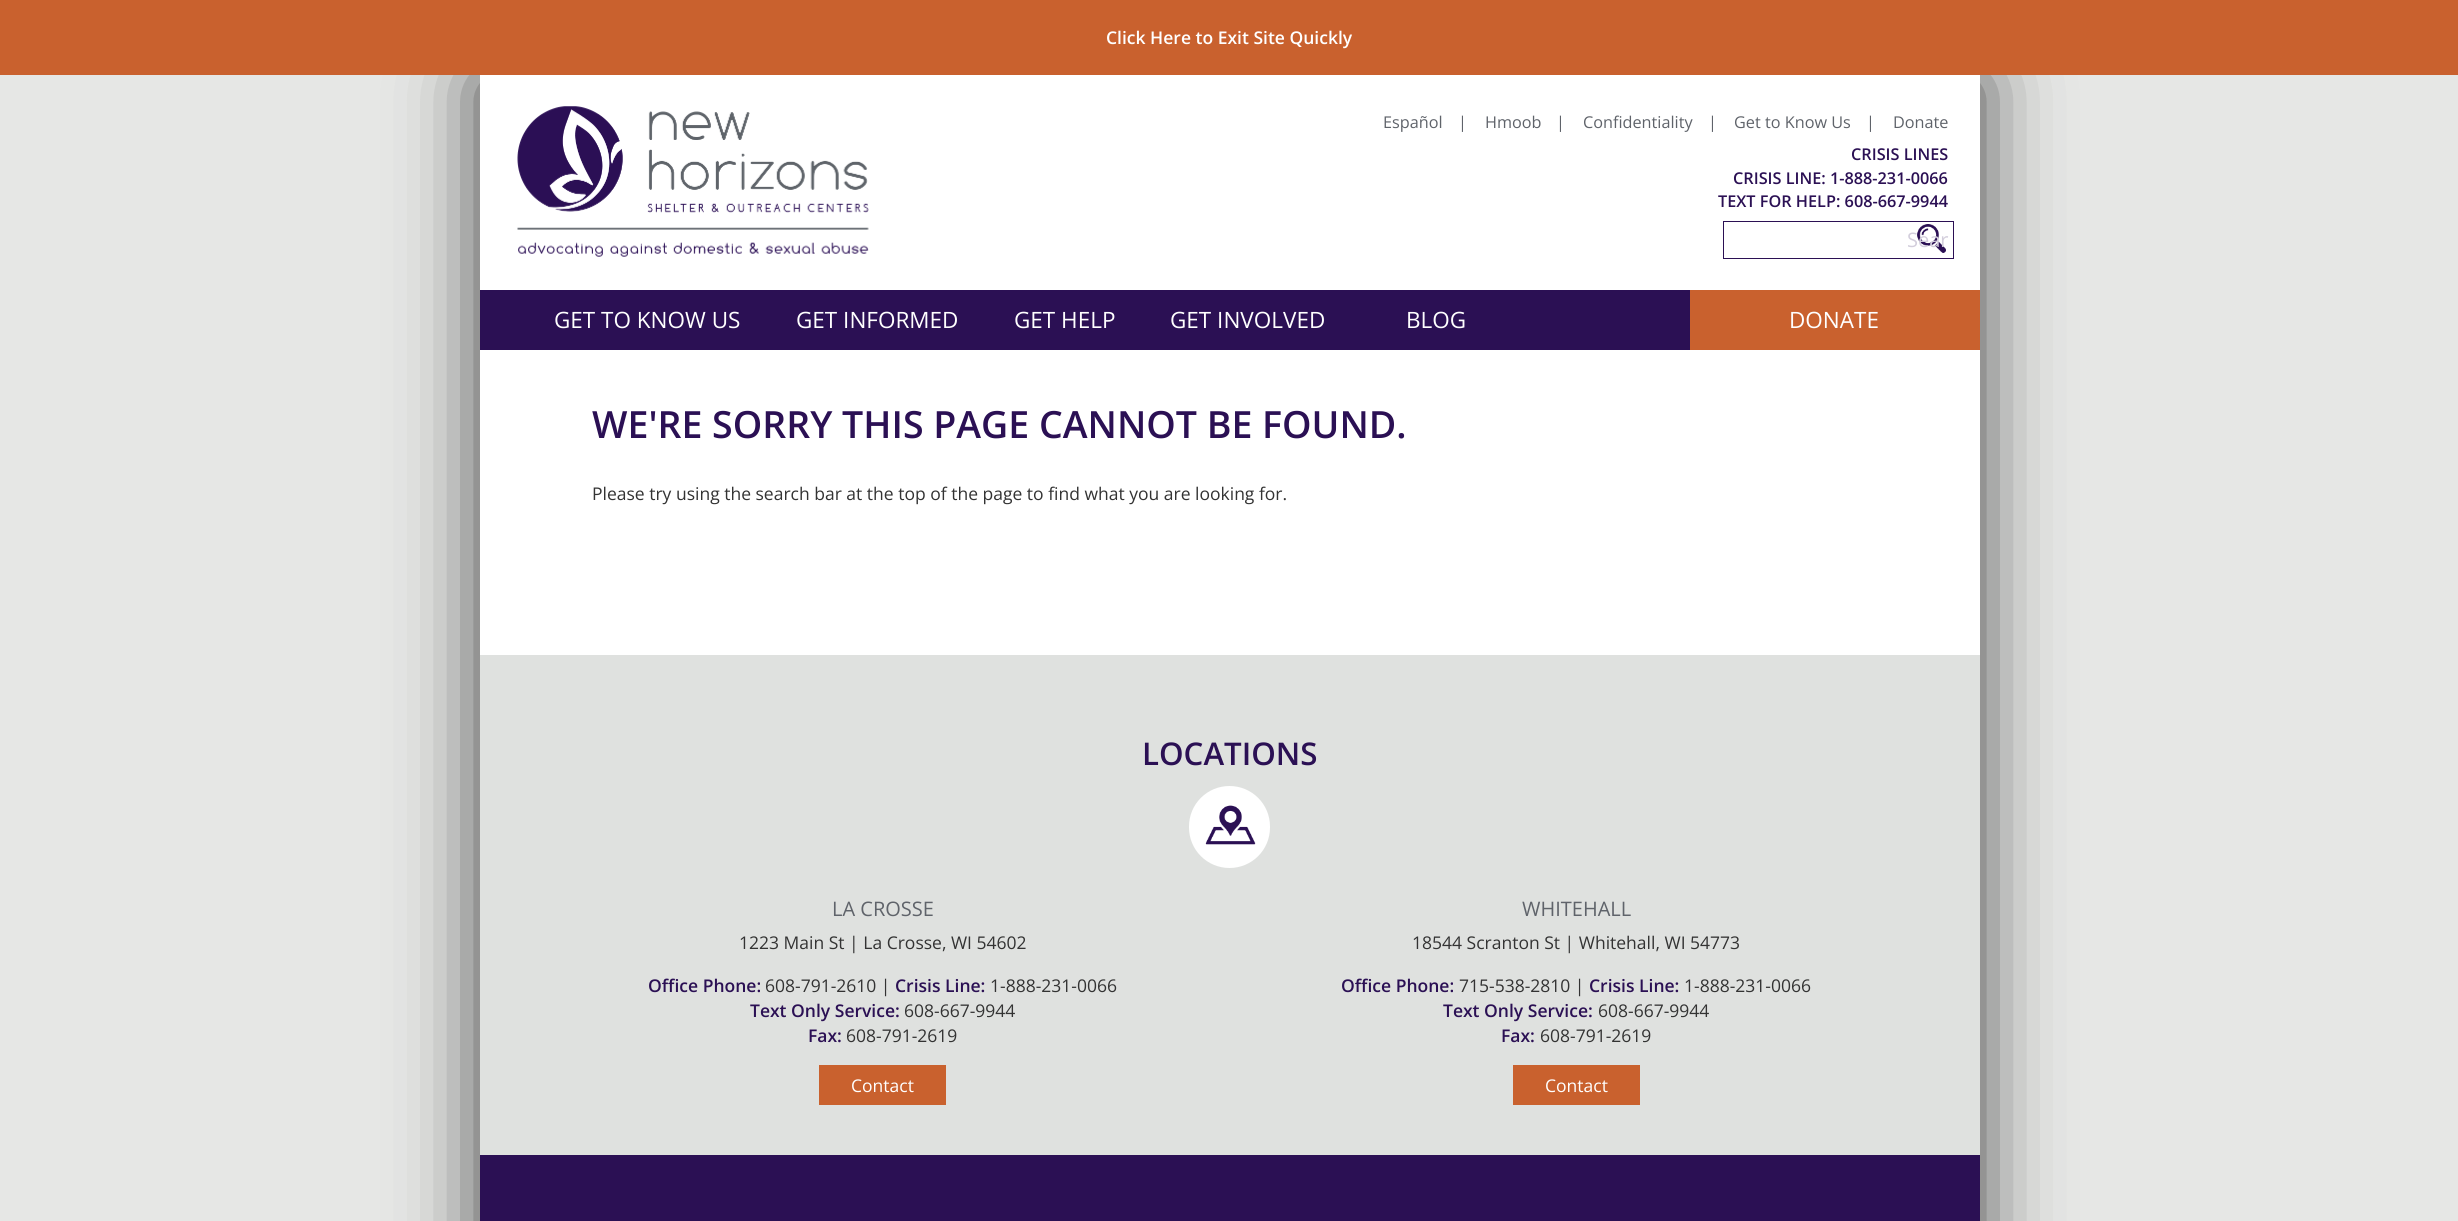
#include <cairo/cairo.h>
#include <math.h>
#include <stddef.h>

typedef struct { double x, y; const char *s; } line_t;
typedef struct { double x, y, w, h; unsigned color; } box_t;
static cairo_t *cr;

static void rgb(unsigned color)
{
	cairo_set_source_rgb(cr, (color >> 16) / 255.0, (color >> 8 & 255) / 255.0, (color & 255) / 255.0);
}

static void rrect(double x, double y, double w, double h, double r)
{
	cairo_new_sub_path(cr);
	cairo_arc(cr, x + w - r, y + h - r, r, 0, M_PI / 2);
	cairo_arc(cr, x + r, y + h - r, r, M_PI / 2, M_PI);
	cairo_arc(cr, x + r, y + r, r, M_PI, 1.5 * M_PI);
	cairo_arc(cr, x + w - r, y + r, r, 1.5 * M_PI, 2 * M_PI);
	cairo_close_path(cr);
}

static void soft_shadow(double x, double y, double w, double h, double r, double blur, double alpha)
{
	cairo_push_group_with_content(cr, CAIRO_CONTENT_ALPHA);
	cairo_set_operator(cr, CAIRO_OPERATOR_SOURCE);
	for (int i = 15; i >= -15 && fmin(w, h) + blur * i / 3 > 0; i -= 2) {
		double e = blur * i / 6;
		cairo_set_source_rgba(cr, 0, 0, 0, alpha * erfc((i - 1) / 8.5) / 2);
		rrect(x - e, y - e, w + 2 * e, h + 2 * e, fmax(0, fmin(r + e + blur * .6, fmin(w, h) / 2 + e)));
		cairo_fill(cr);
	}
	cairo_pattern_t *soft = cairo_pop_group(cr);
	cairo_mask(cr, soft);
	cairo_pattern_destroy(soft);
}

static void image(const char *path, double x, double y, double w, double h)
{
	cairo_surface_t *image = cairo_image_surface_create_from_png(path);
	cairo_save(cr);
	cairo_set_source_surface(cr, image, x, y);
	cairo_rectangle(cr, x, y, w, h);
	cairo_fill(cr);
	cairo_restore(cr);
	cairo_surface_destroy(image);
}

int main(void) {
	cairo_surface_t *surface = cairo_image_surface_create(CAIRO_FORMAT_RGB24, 2458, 1221);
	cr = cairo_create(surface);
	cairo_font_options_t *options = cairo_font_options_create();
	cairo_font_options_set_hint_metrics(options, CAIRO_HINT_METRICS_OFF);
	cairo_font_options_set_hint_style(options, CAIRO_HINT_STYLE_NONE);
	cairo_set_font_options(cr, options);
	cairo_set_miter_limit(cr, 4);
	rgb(0xe6e7e5);
	cairo_paint(cr);
	rgb(0x424242);
	soft_shadow(480, 78, 1500, 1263, 0, 40, 1);
	rgb(0xc9612e);
	cairo_rectangle(cr, 0, 0, 2458, 75);
	cairo_fill(cr);
	rgb(0xffffff);
	cairo_rectangle(cr, 480, 75, 1500, 580);
	cairo_fill(cr);
	image("img/1.png", 517, 106, 352, 151);
	cairo_rectangle(cr, 1723.5, 221.5, 230, 37);
	rgb(0x2b1054);
	cairo_set_line_width(cr, 1);
	cairo_stroke(cr);
	image("img/2.png", 1917, 224, 29, 29);
	{
		static const box_t items[] = {
			{480, 290, 1210, 60, 0x2b1054},
			{1690, 290, 290, 60, 0xc9612e},
			{480, 655, 1500, 500, 0xdfe1df},
		};
		for (size_t i = 0; i < sizeof items / sizeof *items; i++) {
			rgb(items[i].color);
			cairo_rectangle(cr, items[i].x, items[i].y, items[i].w, items[i].h);
			cairo_fill(cr);
		}
	}
	rgb(0xffffff);
	rrect(1189, 786, 81, 82, 40.5);
	cairo_fill(cr);
	image("img/3.png", 1205, 805, 51, 40);
	{
		static const box_t items[] = {
			{819, 1065, 127, 40, 0xc9612e},
			{1513, 1065, 127, 40, 0xc9612e},
			{480, 1155, 1500, 66, 0x2b1054},
		};
		for (size_t i = 0; i < sizeof items / sizeof *items; i++) {
			rgb(items[i].color);
			cairo_rectangle(cr, items[i].x, items[i].y, items[i].w, items[i].h);
			cairo_fill(cr);
		}
	}
	cairo_select_font_face(cr, "Open Sans SemiBold", CAIRO_FONT_SLANT_NORMAL, CAIRO_FONT_WEIGHT_NORMAL);
	cairo_set_font_size(cr, 17.5);
	rgb(0xffffff);
	cairo_move_to(cr, 1106, 44);
	cairo_show_text(cr, "Click Here to Exit Site Quickly");
	cairo_select_font_face(cr, "Open Sans", CAIRO_FONT_SLANT_NORMAL, CAIRO_FONT_WEIGHT_NORMAL);
	cairo_set_font_size(cr, 16.25);
	rgb(0x5f636a);
	{
		static const line_t items[] = {
			{1383, 128, "Español"},
			{1458, 128, "|"},
			{1485, 128, "Hmoob"},
			{1556, 128, "|"},
			{1583, 128, "Confidentiality"},
			{1708, 128, "|"},
			{1734, 128, "Get to Know Us"},
			{1866, 128, "|"},
			{1893, 128, "Donate"},
		};
		for (size_t i = 0; i < sizeof items / sizeof *items; i++) {
			cairo_move_to(cr, items[i].x, items[i].y);
			cairo_show_text(cr, items[i].s);
		}
	}
	cairo_select_font_face(cr, "Open Sans SemiBold", CAIRO_FONT_SLANT_NORMAL, CAIRO_FONT_WEIGHT_NORMAL);
	rgb(0x2b1054);
	{
		static const line_t items[] = {
			{1851, 160, "CRISIS LINES"},
			{1733, 184, "CRISIS LINE: 1-888-231-0066"},
			{1718, 207, "TEXT FOR HELP: 608-667-9944"},
		};
		for (size_t i = 0; i < sizeof items / sizeof *items; i++) {
			cairo_move_to(cr, items[i].x, items[i].y);
			cairo_show_text(cr, items[i].s);
		}
	}
	cairo_select_font_face(cr, "Open Sans", CAIRO_FONT_SLANT_NORMAL, CAIRO_FONT_WEIGHT_NORMAL);
	cairo_set_font_size(cr, 20);
	rgb(0xd3cedc);
	cairo_move_to(cr, 1907, 247);
	cairo_show_text(cr, "Sear");
	cairo_set_font_size(cr, 22.5);
	rgb(0xffffff);
	{
		static const line_t items[] = {
			{554, 328, "GET TO KNOW US"},
			{796, 328, "GET INFORMED"},
			{1014, 328, "GET HELP"},
			{1170, 328, "GET INVOLVED"},
			{1406, 328, "BLOG"},
			{1789, 328, "DONATE"},
		};
		for (size_t i = 0; i < sizeof items / sizeof *items; i++) {
			cairo_move_to(cr, items[i].x, items[i].y);
			cairo_show_text(cr, items[i].s);
		}
	}
	cairo_select_font_face(cr, "Open Sans SemiBold", CAIRO_FONT_SLANT_NORMAL, CAIRO_FONT_WEIGHT_NORMAL);
	cairo_set_font_size(cr, 37.5);
	rgb(0x2b1054);
	cairo_move_to(cr, 592, 438);
	cairo_show_text(cr, "WE'RE SORRY THIS PAGE CANNOT BE FOUND.");
	cairo_select_font_face(cr, "Open Sans", CAIRO_FONT_SLANT_NORMAL, CAIRO_FONT_WEIGHT_NORMAL);
	cairo_set_font_size(cr, 17.5);
	rgb(0x333333);
	cairo_move_to(cr, 592, 500);
	cairo_show_text(cr, "Please try using the search bar at the top of the page to find what you are looking for.");
	cairo_select_font_face(cr, "Open Sans SemiBold", CAIRO_FONT_SLANT_NORMAL, CAIRO_FONT_WEIGHT_NORMAL);
	cairo_set_font_size(cr, 31.25);
	rgb(0x2b1054);
	cairo_move_to(cr, 1142, 765);
	cairo_show_text(cr, "LOCATIONS");
	cairo_select_font_face(cr, "Open Sans", CAIRO_FONT_SLANT_NORMAL, CAIRO_FONT_WEIGHT_NORMAL);
	cairo_set_font_size(cr, 20);
	rgb(0x5f636a);
	cairo_move_to(cr, 832, 916);
	cairo_show_text(cr, "LA CROSSE");
	cairo_set_font_size(cr, 17.5);
	rgb(0x333333);
	cairo_move_to(cr, 739, 949);
	cairo_show_text(cr, "1223 Main St | La Crosse, WI 54602");
	cairo_select_font_face(cr, "Open Sans SemiBold", CAIRO_FONT_SLANT_NORMAL, CAIRO_FONT_WEIGHT_NORMAL);
	rgb(0x2b1054);
	cairo_move_to(cr, 648, 992);
	cairo_show_text(cr, "Office Phone:");
	cairo_select_font_face(cr, "Open Sans", CAIRO_FONT_SLANT_NORMAL, CAIRO_FONT_WEIGHT_NORMAL);
	rgb(0x333333);
	cairo_move_to(cr, 765, 992);
	cairo_show_text(cr, "608-791-2610 |");
	cairo_select_font_face(cr, "Open Sans SemiBold", CAIRO_FONT_SLANT_NORMAL, CAIRO_FONT_WEIGHT_NORMAL);
	rgb(0x2b1054);
	cairo_move_to(cr, 895, 992);
	cairo_show_text(cr, "Crisis Line:");
	cairo_select_font_face(cr, "Open Sans", CAIRO_FONT_SLANT_NORMAL, CAIRO_FONT_WEIGHT_NORMAL);
	rgb(0x333333);
	cairo_move_to(cr, 990, 992);
	cairo_show_text(cr, "1-888-231-0066");
	cairo_select_font_face(cr, "Open Sans SemiBold", CAIRO_FONT_SLANT_NORMAL, CAIRO_FONT_WEIGHT_NORMAL);
	rgb(0x2b1054);
	cairo_move_to(cr, 750, 1017);
	cairo_show_text(cr, "Text Only Service:");
	cairo_select_font_face(cr, "Open Sans", CAIRO_FONT_SLANT_NORMAL, CAIRO_FONT_WEIGHT_NORMAL);
	rgb(0x333333);
	cairo_move_to(cr, 904, 1017);
	cairo_show_text(cr, "608-667-9944");
	cairo_select_font_face(cr, "Open Sans SemiBold", CAIRO_FONT_SLANT_NORMAL, CAIRO_FONT_WEIGHT_NORMAL);
	rgb(0x2b1054);
	cairo_move_to(cr, 808, 1042);
	cairo_show_text(cr, "Fax:");
	cairo_select_font_face(cr, "Open Sans", CAIRO_FONT_SLANT_NORMAL, CAIRO_FONT_WEIGHT_NORMAL);
	rgb(0x333333);
	cairo_move_to(cr, 846, 1042);
	cairo_show_text(cr, "608-791-2619");
	rgb(0xffffff);
	cairo_move_to(cr, 851, 1092);
	cairo_show_text(cr, "Contact");
	cairo_set_font_size(cr, 20);
	rgb(0x5f636a);
	cairo_move_to(cr, 1522, 916);
	cairo_show_text(cr, "WHITEHALL");
	cairo_set_font_size(cr, 17.5);
	rgb(0x333333);
	cairo_move_to(cr, 1412, 949);
	cairo_show_text(cr, "18544 Scranton St | Whitehall, WI 54773");
	cairo_select_font_face(cr, "Open Sans SemiBold", CAIRO_FONT_SLANT_NORMAL, CAIRO_FONT_WEIGHT_NORMAL);
	rgb(0x2b1054);
	cairo_move_to(cr, 1341, 992);
	cairo_show_text(cr, "Office Phone:");
	cairo_select_font_face(cr, "Open Sans", CAIRO_FONT_SLANT_NORMAL, CAIRO_FONT_WEIGHT_NORMAL);
	rgb(0x333333);
	cairo_move_to(cr, 1459, 992);
	cairo_show_text(cr, "715-538-2810 |");
	cairo_select_font_face(cr, "Open Sans SemiBold", CAIRO_FONT_SLANT_NORMAL, CAIRO_FONT_WEIGHT_NORMAL);
	rgb(0x2b1054);
	cairo_move_to(cr, 1589, 992);
	cairo_show_text(cr, "Crisis Line:");
	cairo_select_font_face(cr, "Open Sans", CAIRO_FONT_SLANT_NORMAL, CAIRO_FONT_WEIGHT_NORMAL);
	rgb(0x333333);
	cairo_move_to(cr, 1684, 992);
	cairo_show_text(cr, "1-888-231-0066");
	cairo_select_font_face(cr, "Open Sans SemiBold", CAIRO_FONT_SLANT_NORMAL, CAIRO_FONT_WEIGHT_NORMAL);
	rgb(0x2b1054);
	cairo_move_to(cr, 1443, 1017);
	cairo_show_text(cr, "Text Only Service:");
	cairo_select_font_face(cr, "Open Sans", CAIRO_FONT_SLANT_NORMAL, CAIRO_FONT_WEIGHT_NORMAL);
	rgb(0x333333);
	cairo_move_to(cr, 1598, 1017);
	cairo_show_text(cr, "608-667-9944");
	cairo_select_font_face(cr, "Open Sans SemiBold", CAIRO_FONT_SLANT_NORMAL, CAIRO_FONT_WEIGHT_NORMAL);
	rgb(0x2b1054);
	cairo_move_to(cr, 1501, 1042);
	cairo_show_text(cr, "Fax:");
	cairo_select_font_face(cr, "Open Sans", CAIRO_FONT_SLANT_NORMAL, CAIRO_FONT_WEIGHT_NORMAL);
	rgb(0x333333);
	cairo_move_to(cr, 1540, 1042);
	cairo_show_text(cr, "608-791-2619");
	rgb(0xffffff);
	cairo_move_to(cr, 1545, 1092);
	cairo_show_text(cr, "Contact");
	cairo_surface_write_to_png(surface, "page.png");
	cairo_font_options_destroy(options);
	cairo_destroy(cr);
	cairo_surface_destroy(surface);
	return 0;
}
